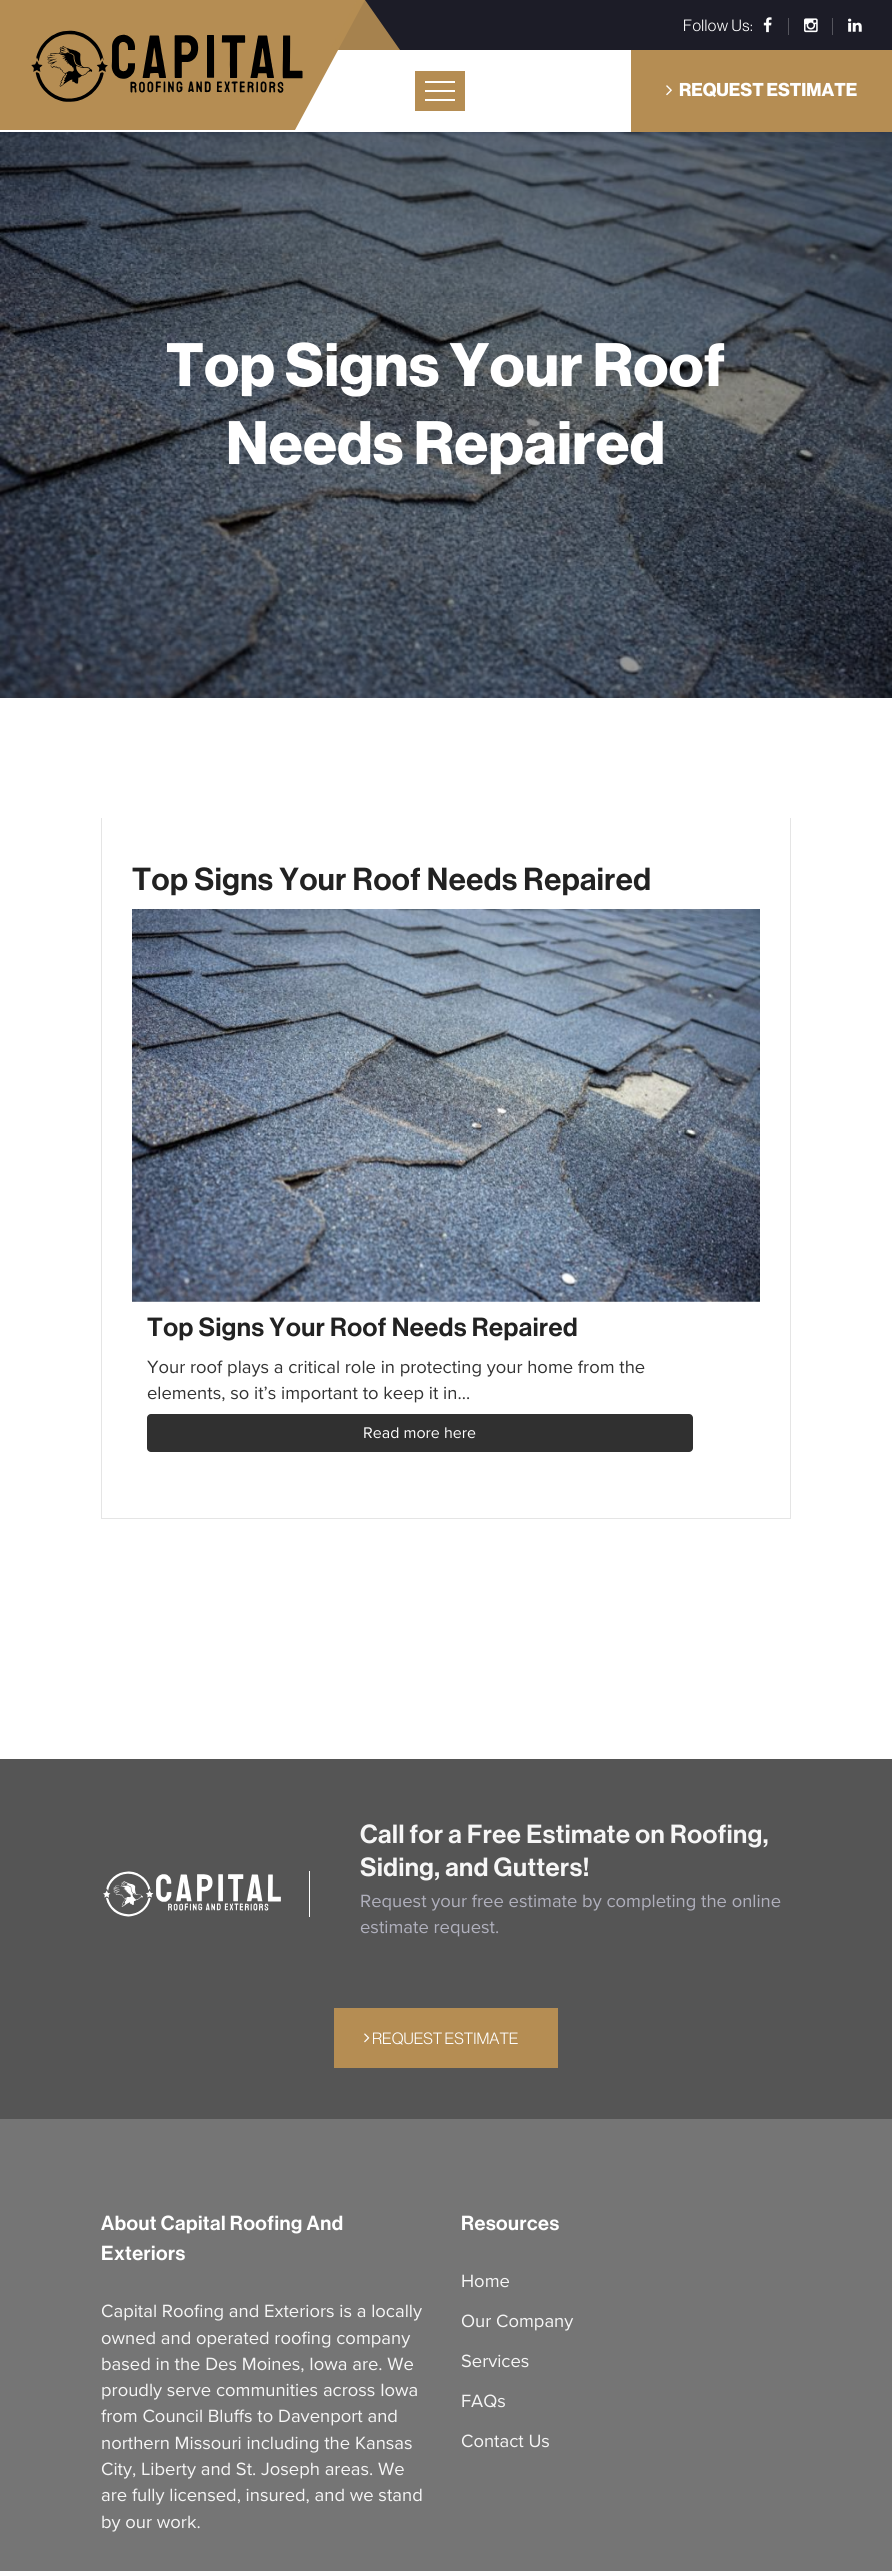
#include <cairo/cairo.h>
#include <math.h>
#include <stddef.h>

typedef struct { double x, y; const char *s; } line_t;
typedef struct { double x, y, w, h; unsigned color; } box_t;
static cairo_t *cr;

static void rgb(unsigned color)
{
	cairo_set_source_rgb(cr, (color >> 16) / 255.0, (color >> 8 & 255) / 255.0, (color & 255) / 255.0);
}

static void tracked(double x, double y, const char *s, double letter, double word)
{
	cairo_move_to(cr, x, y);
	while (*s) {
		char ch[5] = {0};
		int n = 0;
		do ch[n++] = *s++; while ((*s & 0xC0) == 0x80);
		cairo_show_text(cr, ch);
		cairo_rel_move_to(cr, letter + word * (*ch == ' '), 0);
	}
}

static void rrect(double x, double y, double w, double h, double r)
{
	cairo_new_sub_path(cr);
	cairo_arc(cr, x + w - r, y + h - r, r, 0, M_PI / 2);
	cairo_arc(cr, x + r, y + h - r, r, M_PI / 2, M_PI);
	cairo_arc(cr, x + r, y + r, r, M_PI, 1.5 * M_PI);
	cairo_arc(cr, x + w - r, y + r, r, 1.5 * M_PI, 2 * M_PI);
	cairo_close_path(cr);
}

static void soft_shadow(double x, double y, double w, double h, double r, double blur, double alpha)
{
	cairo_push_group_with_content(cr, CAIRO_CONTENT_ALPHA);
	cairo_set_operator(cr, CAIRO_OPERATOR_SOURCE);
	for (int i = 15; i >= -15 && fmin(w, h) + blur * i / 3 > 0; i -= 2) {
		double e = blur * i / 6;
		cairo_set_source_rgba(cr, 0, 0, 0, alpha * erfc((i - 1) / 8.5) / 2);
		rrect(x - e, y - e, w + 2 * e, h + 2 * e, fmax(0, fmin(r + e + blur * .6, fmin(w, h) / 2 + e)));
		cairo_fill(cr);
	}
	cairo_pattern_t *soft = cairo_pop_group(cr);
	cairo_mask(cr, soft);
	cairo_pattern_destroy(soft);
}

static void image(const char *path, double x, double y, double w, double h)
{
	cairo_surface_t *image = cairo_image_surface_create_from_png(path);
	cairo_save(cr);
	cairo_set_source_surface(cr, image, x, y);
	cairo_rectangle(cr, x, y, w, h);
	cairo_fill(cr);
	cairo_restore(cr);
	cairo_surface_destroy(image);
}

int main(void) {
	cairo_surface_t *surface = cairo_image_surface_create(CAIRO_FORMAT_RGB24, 892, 2571);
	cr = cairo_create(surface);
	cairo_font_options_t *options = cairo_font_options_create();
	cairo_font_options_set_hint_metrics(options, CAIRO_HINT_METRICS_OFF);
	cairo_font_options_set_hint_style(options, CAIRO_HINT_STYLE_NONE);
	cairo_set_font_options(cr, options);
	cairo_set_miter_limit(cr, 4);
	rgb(0xffffff);
	cairo_paint(cr);
	image("img/6.png", 0, 132, 892, 566);
	cairo_save(cr);
	cairo_rectangle(cr, 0, 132, 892, 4);
	cairo_clip(cr);
	rgb(0x041a3d);
	soft_shadow(0, 2, 892, 132, 0, 1.5, 0.2);
	cairo_restore(cr);
	rgb(0x1c1c27);
	cairo_rectangle(cr, 338, 0, 554, 50);
	cairo_fill(cr);
	rgb(0xb58d53);
	cairo_new_path(cr);
	cairo_move_to(cr, -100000, 0);
	cairo_line_to(cr, 365, 0);
	cairo_line_to(cr, 295, 130);
	cairo_line_to(cr, -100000, 130);
	cairo_close_path(cr);
	cairo_fill(cr);
	cairo_set_source_rgba(cr, 0.71, 0.553, 0.325, 0.9);
	cairo_new_path(cr);
	cairo_move_to(cr, 400, 50);
	cairo_line_to(cr, 330, 50);
	cairo_line_to(cr, 357, 0);
	cairo_line_to(cr, 365, 0);
	cairo_close_path(cr);
	cairo_fill(cr);
	image("img/1.png", 31, 30, 272, 72);
	image("img/2.png", 763, 17, 9, 16);
	rgb(0x55555d);
	cairo_rectangle(cr, 788, 18, 1, 17);
	cairo_fill(cr);
	image("img/3.png", 804, 18, 14, 15);
	cairo_rectangle(cr, 832, 18, 1, 17);
	cairo_fill(cr);
	image("img/4.png", 848, 18, 14, 14);
	{
		static const box_t items[] = {
			{415, 71, 50, 40, 0xb58d53},
			{425, 81, 30, 2, 0xffffff},
			{425, 90, 30, 2, 0xffffff},
			{425, 99, 30, 2, 0xffffff},
			{631, 50, 261, 82, 0xb58d53},
		};
		for (size_t i = 0; i < sizeof items / sizeof *items; i++) {
			rgb(items[i].color);
			cairo_rectangle(cr, items[i].x, items[i].y, items[i].w, items[i].h);
			cairo_fill(cr);
		}
	}
	image("img/5.png", 666, 85, 6, 11);
	{
		static const box_t items[] = {
			{790, 818, 1, 701, 0xe5e5e5},
			{101, 1518, 690, 1, 0xe5e5e5},
			{101, 818, 1, 701, 0xe5e5e5},
		};
		for (size_t i = 0; i < sizeof items / sizeof *items; i++) {
			rgb(items[i].color);
			cairo_rectangle(cr, items[i].x, items[i].y, items[i].w, items[i].h);
			cairo_fill(cr);
		}
	}
	image("img/7.png", 132, 909, 628, 393);
	rgb(0x303030);
	rrect(147, 1414, 546, 38, 4);
	cairo_fill(cr);
	rgb(0x757575);
	cairo_rectangle(cr, 0, 2119, 892, 452);
	cairo_fill(cr);
	rgb(0x555555);
	cairo_rectangle(cr, 0, 1759, 892, 360);
	cairo_fill(cr);
	image("img/8.png", 103, 1871, 178, 46);
	rgb(0xffffff);
	cairo_rectangle(cr, 309, 1871, 1, 46);
	cairo_fill(cr);
	rgb(0xb58d53);
	cairo_rectangle(cr, 334, 2008, 224, 60);
	cairo_fill(cr);
	image("img/9.png", 364, 2033, 6, 10);
	cairo_select_font_face(cr, "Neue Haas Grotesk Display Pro", CAIRO_FONT_SLANT_NORMAL, CAIRO_FONT_WEIGHT_NORMAL);
	cairo_set_font_size(cr, 16);
	rgb(0xffffff);
	tracked(683, 31, "Follow Us:", 0.5, 0);
	cairo_select_font_face(cr, "Neue Haas Grotesk Display Pro", CAIRO_FONT_SLANT_NORMAL, CAIRO_FONT_WEIGHT_BOLD);
	cairo_set_font_size(cr, 18.25);
	cairo_move_to(cr, 679, 96);
	cairo_show_text(cr, "REQUEST ESTIMATE");
	cairo_set_font_size(cr, 60);
	tracked(166, 386, "Top Signs Your Roof", 0.5, 0);
	tracked(226, 464, "Needs Repaired", 0.5, 0);
	cairo_select_font_face(cr, "Neue Haas Grotesk Display Pro Medium", CAIRO_FONT_SLANT_NORMAL, CAIRO_FONT_WEIGHT_NORMAL);
	cairo_set_font_size(cr, 31.25);
	rgb(0x222222);
	tracked(132, 890, "Top Signs Your Roof Needs Repaired", 0.5, 0);
	cairo_set_font_size(cr, 25.75);
	tracked(147, 1336, "Top Signs Your Roof Needs Repaired", 0.5, 0);
	cairo_select_font_face(cr, "Proxima Nova", CAIRO_FONT_SLANT_NORMAL, CAIRO_FONT_WEIGHT_NORMAL);
	cairo_set_font_size(cr, 18.4);
	rgb(0x333333);
	cairo_move_to(cr, 147, 1373);
	cairo_show_text(cr, "Your roof plays a critical role in protecting your home from the");
	cairo_move_to(cr, 147, 1399);
	cairo_show_text(cr, "elements, so it’s important to keep it in…");
	cairo_set_font_size(cr, 16);
	rgb(0xffffff);
	cairo_move_to(cr, 363, 1438);
	cairo_show_text(cr, "Read more here");
	cairo_select_font_face(cr, "Neue Haas Grotesk Display Pro Medium", CAIRO_FONT_SLANT_NORMAL, CAIRO_FONT_WEIGHT_NORMAL);
	cairo_set_font_size(cr, 25.75);
	rgb(0xf6f6f6);
	tracked(360, 1843, "Call for a Free Estimate on Roofing,", 0.5, 0);
	tracked(360, 1876, "Siding, and Gutters!", 0.5, 0);
	cairo_select_font_face(cr, "Proxima Nova", CAIRO_FONT_SLANT_NORMAL, CAIRO_FONT_WEIGHT_NORMAL);
	cairo_set_font_size(cr, 18.4);
	rgb(0xb0b0bd);
	cairo_move_to(cr, 360, 1907);
	cairo_show_text(cr, "Request your free estimate by completing the online");
	cairo_move_to(cr, 360, 1933);
	cairo_show_text(cr, "estimate request.");
	cairo_select_font_face(cr, "Neue Haas Grotesk Display Pro", CAIRO_FONT_SLANT_NORMAL, CAIRO_FONT_WEIGHT_NORMAL);
	cairo_set_font_size(cr, 16);
	rgb(0xffffff);
	cairo_move_to(cr, 372, 2044);
	cairo_show_text(cr, "REQUEST ESTIMATE");
	cairo_select_font_face(cr, "Neue Haas Grotesk Display Pro Medium", CAIRO_FONT_SLANT_NORMAL, CAIRO_FONT_WEIGHT_NORMAL);
	cairo_set_font_size(cr, 20);
	tracked(101, 2230, "About Capital Roofing And", 0.5, 0);
	tracked(101, 2260, "Exteriors", 0.5, 0);
	cairo_select_font_face(cr, "Proxima Nova", CAIRO_FONT_SLANT_NORMAL, CAIRO_FONT_WEIGHT_NORMAL);
	cairo_set_font_size(cr, 18.4);
	rgb(0xf6f6f6);
	{
		static const line_t items[] = {
			{101, 2317, "Capital Roofing and Exteriors is a locally"},
			{101, 2344, "owned and operated roofing company"},
			{101, 2370, "based in the Des Moines, Iowa are. We"},
			{101, 2396, "proudly serve communities across Iowa"},
			{101, 2422, "from Council Bluffs to Davenport and"},
			{101, 2449, "northern Missouri including the Kansas"},
			{101, 2475, "City, Liberty and St. Joseph areas. We"},
			{101, 2501, "are fully licensed, insured, and we stand"},
			{101, 2528, "by our work."},
		};
		for (size_t i = 0; i < sizeof items / sizeof *items; i++) {
			cairo_move_to(cr, items[i].x, items[i].y);
			cairo_show_text(cr, items[i].s);
		}
	}
	cairo_select_font_face(cr, "Neue Haas Grotesk Display Pro Medium", CAIRO_FONT_SLANT_NORMAL, CAIRO_FONT_WEIGHT_NORMAL);
	cairo_set_font_size(cr, 20);
	rgb(0xffffff);
	tracked(461, 2230, "Resources", 0.5, 0);
	cairo_select_font_face(cr, "Proxima Nova", CAIRO_FONT_SLANT_NORMAL, CAIRO_FONT_WEIGHT_NORMAL);
	cairo_set_font_size(cr, 18.4);
	rgb(0xf6f6f6);
	{
		static const line_t items[] = {
			{461, 2287, "Home"},
			{461, 2327, "Our Company"},
			{461, 2367, "Services"},
			{461, 2407, "FAQs"},
			{461, 2447, "Contact Us"},
		};
		for (size_t i = 0; i < sizeof items / sizeof *items; i++) {
			cairo_move_to(cr, items[i].x, items[i].y);
			cairo_show_text(cr, items[i].s);
		}
	}
	cairo_surface_write_to_png(surface, "page.png");
	cairo_font_options_destroy(options);
	cairo_destroy(cr);
	cairo_surface_destroy(surface);
	return 0;
}
